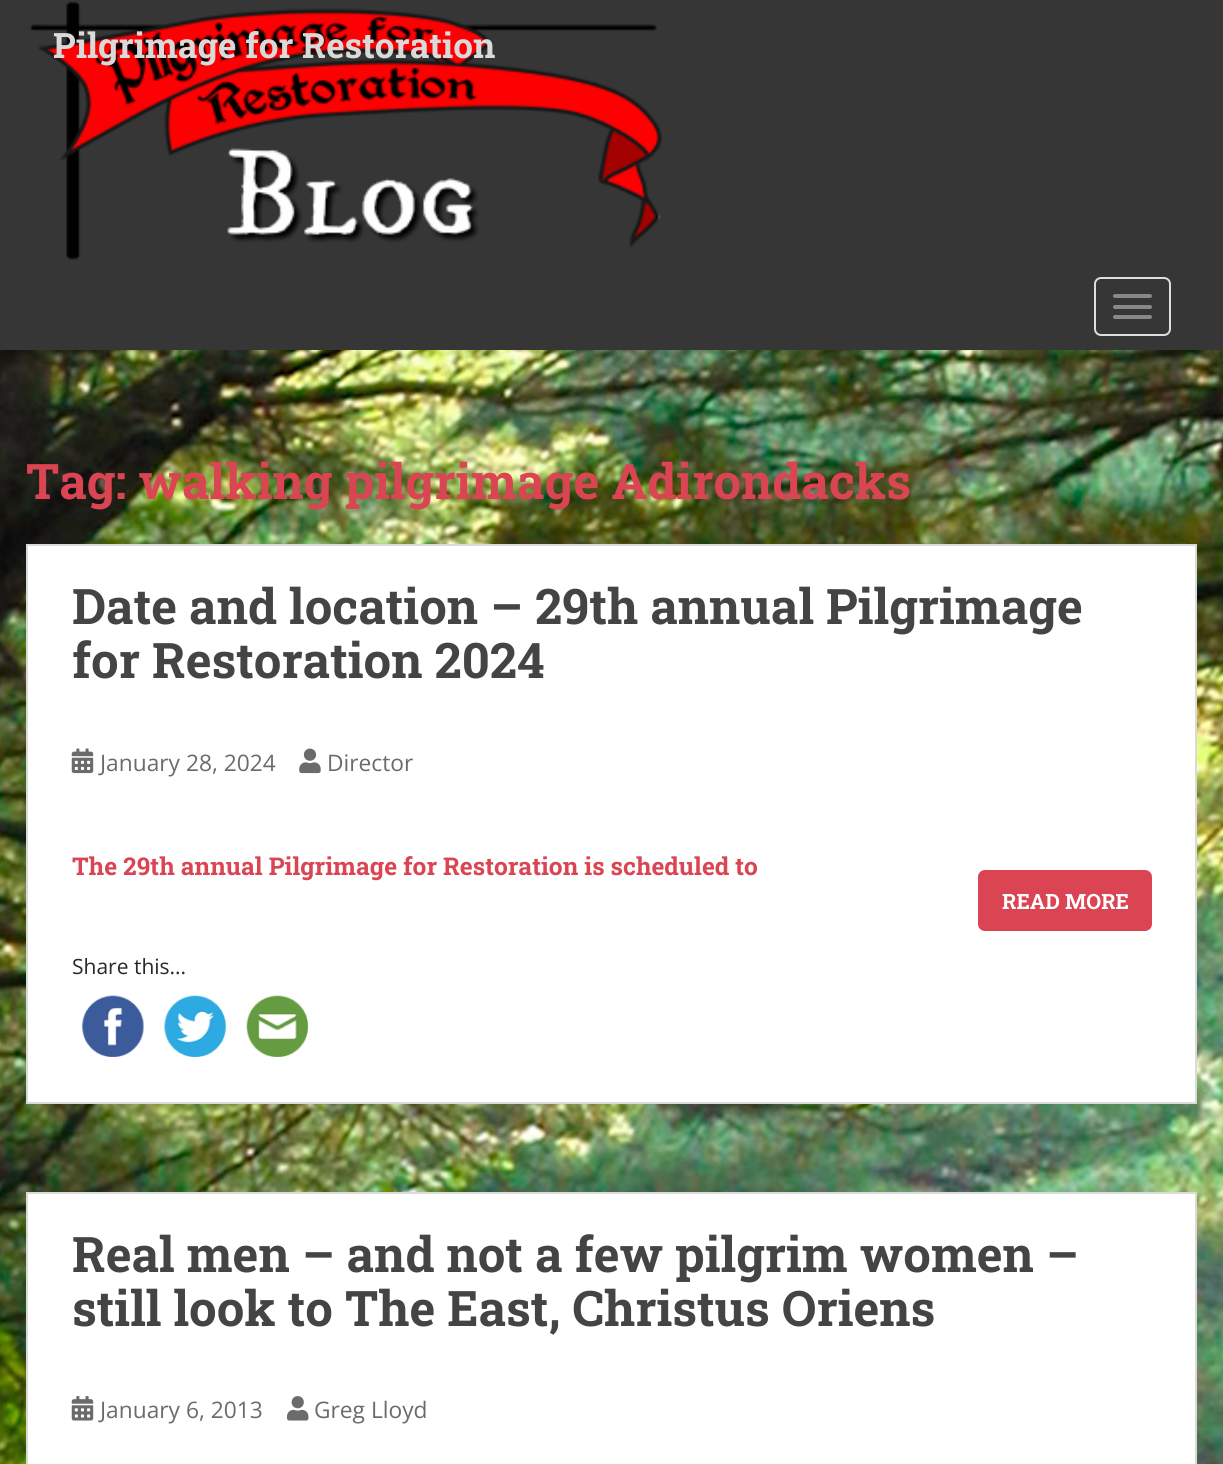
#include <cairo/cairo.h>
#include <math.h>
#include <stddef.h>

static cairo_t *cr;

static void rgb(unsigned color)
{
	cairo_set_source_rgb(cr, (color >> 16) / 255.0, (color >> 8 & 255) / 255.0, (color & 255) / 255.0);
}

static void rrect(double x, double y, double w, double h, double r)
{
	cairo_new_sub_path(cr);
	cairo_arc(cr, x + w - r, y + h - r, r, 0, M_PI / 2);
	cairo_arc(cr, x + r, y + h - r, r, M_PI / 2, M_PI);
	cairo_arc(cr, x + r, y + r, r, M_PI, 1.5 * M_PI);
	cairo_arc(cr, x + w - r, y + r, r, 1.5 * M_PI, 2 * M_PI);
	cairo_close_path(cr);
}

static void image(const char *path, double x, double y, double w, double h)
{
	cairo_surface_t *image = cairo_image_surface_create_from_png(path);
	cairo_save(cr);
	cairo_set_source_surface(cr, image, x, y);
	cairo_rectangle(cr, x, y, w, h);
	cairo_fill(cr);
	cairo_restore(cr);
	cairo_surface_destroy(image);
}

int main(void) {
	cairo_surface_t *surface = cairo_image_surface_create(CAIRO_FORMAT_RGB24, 1223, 1464);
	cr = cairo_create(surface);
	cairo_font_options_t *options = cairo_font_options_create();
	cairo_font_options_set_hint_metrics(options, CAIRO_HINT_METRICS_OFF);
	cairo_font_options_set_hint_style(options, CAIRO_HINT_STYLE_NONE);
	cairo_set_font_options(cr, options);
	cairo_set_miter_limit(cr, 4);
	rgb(0xffffff);
	cairo_paint(cr);
	image("img/1.png", 0, 350, 1223, 1114);
	rgb(0x363636);
	cairo_rectangle(cr, 0, 0, 1223, 350);
	cairo_fill(cr);
	image("img/2.png", 29, 1, 633, 259);
	rrect(1095, 278, 75, 57, 6);
	rgb(0xdddddd);
	cairo_stroke(cr);
	rgb(0x888888);
	rrect(1113, 294, 39, 4, 2);
	cairo_fill(cr);
	rrect(1113, 305, 39, 4, 2);
	cairo_fill(cr);
	rrect(1113, 315, 39, 4, 2);
	cairo_fill(cr);
	rgb(0xffffff);
	cairo_rectangle(cr, 27, 545, 1169, 558);
	cairo_fill_preserve(cr);
	rgb(0xdadada);
	cairo_stroke(cr);
	image("img/3.png", 71, 748, 23, 26);
	image("img/4.png", 299, 748, 22, 26);
	rgb(0xda4453);
	rrect(978, 870, 174, 61, 7);
	cairo_fill(cr);
	image("img/5.png", 82, 995, 62, 62);
	image("img/6.png", 164, 995, 62, 62);
	image("img/7.png", 246, 995, 62, 62);
	rgb(0xffffff);
	cairo_rectangle(cr, 27, 1193, 1169, 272);
	cairo_fill_preserve(cr);
	rgb(0xdadada);
	cairo_stroke(cr);
	image("img/8.png", 71, 1396, 23, 25);
	image("img/9.png", 287, 1396, 22, 25);
	cairo_select_font_face(cr, "Roboto Slab", CAIRO_FONT_SLANT_NORMAL, CAIRO_FONT_WEIGHT_BOLD);
	cairo_set_font_size(cr, 35);
	cairo_move_to(cr, 53, 58);
	cairo_show_text(cr, "Pilgrimage for Restoration");
	cairo_set_font_size(cr, 49);
	rgb(0xda4453);
	cairo_move_to(cr, 26, 499);
	cairo_show_text(cr, "Tag: walking pilgrimage Adirondacks");
	rgb(0x444444);
	cairo_move_to(cr, 72, 624);
	cairo_show_text(cr, "Date and location – 29th annual Pilgrimage");
	cairo_move_to(cr, 72, 678);
	cairo_show_text(cr, "for Restoration 2024");
	cairo_select_font_face(cr, "Open Sans", CAIRO_FONT_SLANT_NORMAL, CAIRO_FONT_WEIGHT_NORMAL);
	cairo_set_font_size(cr, 22.75);
	rgb(0x6b6b6b);
	cairo_move_to(cr, 100, 771);
	cairo_show_text(cr, "January 28, 2024");
	cairo_move_to(cr, 327, 771);
	cairo_show_text(cr, "Director");
	cairo_select_font_face(cr, "Roboto Slab", CAIRO_FONT_SLANT_NORMAL, CAIRO_FONT_WEIGHT_BOLD);
	cairo_set_font_size(cr, 24.5);
	rgb(0xda4453);
	cairo_move_to(cr, 72, 875);
	cairo_show_text(cr, "The 29th annual Pilgrimage for Restoration is scheduled to");
	cairo_set_font_size(cr, 21);
	rgb(0xffffff);
	cairo_move_to(cr, 1002, 909);
	cairo_show_text(cr, "READ MORE");
	cairo_select_font_face(cr, "Open Sans", CAIRO_FONT_SLANT_NORMAL, CAIRO_FONT_WEIGHT_NORMAL);
	rgb(0x272727);
	cairo_move_to(cr, 72, 974);
	cairo_show_text(cr, "Share this...");
	cairo_select_font_face(cr, "Roboto Slab", CAIRO_FONT_SLANT_NORMAL, CAIRO_FONT_WEIGHT_BOLD);
	cairo_set_font_size(cr, 49);
	rgb(0x444444);
	cairo_move_to(cr, 72, 1272);
	cairo_show_text(cr, "Real men – and not a few pilgrim women –");
	cairo_move_to(cr, 72, 1326);
	cairo_show_text(cr, "still look to The East, Christus Oriens");
	cairo_select_font_face(cr, "Open Sans", CAIRO_FONT_SLANT_NORMAL, CAIRO_FONT_WEIGHT_NORMAL);
	cairo_set_font_size(cr, 22.75);
	rgb(0x6b6b6b);
	cairo_move_to(cr, 100, 1418);
	cairo_show_text(cr, "January 6, 2013");
	cairo_move_to(cr, 314, 1418);
	cairo_show_text(cr, "Greg Lloyd");
	cairo_surface_write_to_png(surface, "page.png");
	cairo_font_options_destroy(options);
	cairo_destroy(cr);
	cairo_surface_destroy(surface);
	return 0;
}
